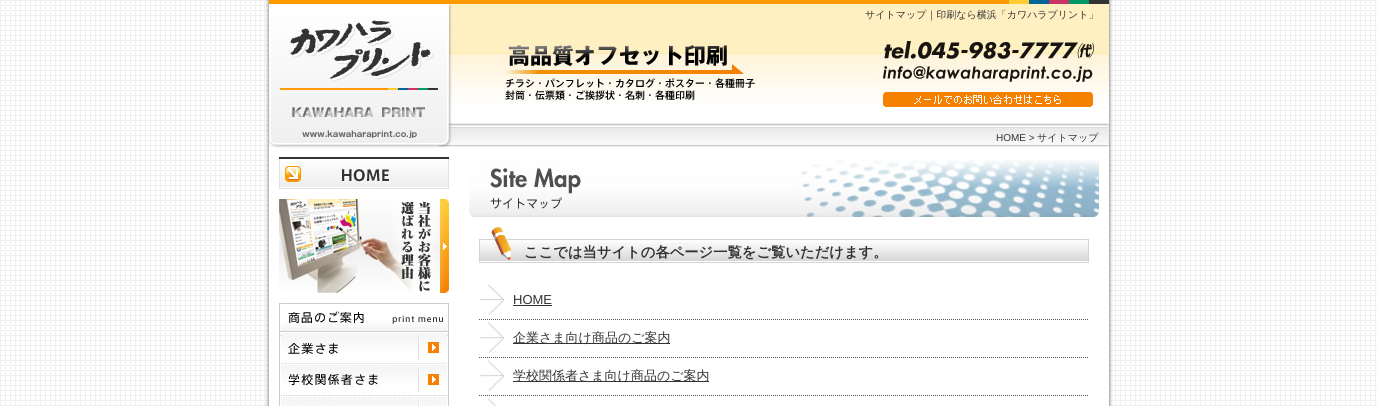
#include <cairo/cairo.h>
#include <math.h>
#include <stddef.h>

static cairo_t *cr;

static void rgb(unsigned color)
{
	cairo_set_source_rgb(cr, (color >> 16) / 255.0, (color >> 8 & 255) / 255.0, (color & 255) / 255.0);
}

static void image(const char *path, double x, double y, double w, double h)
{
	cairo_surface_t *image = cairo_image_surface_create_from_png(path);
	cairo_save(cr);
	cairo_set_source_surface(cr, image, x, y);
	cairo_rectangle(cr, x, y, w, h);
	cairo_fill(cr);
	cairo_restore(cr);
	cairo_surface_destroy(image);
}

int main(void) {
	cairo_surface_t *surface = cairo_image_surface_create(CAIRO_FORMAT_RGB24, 1377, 406);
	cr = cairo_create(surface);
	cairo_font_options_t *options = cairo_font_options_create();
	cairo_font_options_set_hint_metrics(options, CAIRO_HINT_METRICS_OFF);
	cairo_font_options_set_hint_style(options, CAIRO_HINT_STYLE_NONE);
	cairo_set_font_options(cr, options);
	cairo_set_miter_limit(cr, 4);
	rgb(0xffffff);
	cairo_paint(cr);
	image("img/1.png", 0, 0, 1377, 406);
	image("img/2.png", 264, 0, 849, 406);
	image("img/3.png", 269, 0, 840, 148);
	image("img/4.png", 883, 92, 210, 15);
	image("img/5.png", 279, 157, 170, 32);
	image("img/6.png", 279, 199, 170, 94);
	image("img/7.png", 279, 303, 170, 29);
	image("img/8.png", 279, 332, 170, 32);
	image("img/9.png", 279, 364, 170, 32);
	image("img/10.png", 279, 396, 170, 10);
	image("img/11.png", 469, 160, 630, 57);
	image("img/12.png", 479, 227, 610, 36);
	cairo_new_path(cr);
	cairo_move_to(cr, 479, 319.5);
	cairo_line_to(cr, 1089, 319.5);
	rgb(0x555555);
	cairo_set_line_width(cr, 1);
	cairo_set_dash(cr, (double[]){1, 1}, 2, 0);
	cairo_stroke(cr);
	image("img/13.png", 479, 284, 25, 31);
	rgb(0x333333);
	cairo_rectangle(cr, 513, 305, 39, 1);
	cairo_fill(cr);
	cairo_new_path(cr);
	cairo_move_to(cr, 479, 357.5);
	cairo_line_to(cr, 1089, 357.5);
	rgb(0x555555);
	cairo_stroke(cr);
	image("img/13.png", 479, 322, 25, 31);
	rgb(0x333333);
	cairo_rectangle(cr, 513, 343, 157, 1);
	cairo_fill(cr);
	cairo_new_path(cr);
	cairo_move_to(cr, 479, 395.5);
	cairo_line_to(cr, 1089, 395.5);
	rgb(0x555555);
	cairo_stroke(cr);
	image("img/13.png", 479, 360, 25, 31);
	rgb(0x333333);
	cairo_rectangle(cr, 513, 381, 196, 1);
	cairo_fill(cr);
	image("img/14.png", 487, 398, 10, 8);
	cairo_select_font_face(cr, "WenQuanYi Zen Hei Medium", CAIRO_FONT_SLANT_NORMAL, CAIRO_FONT_WEIGHT_NORMAL);
	cairo_set_font_size(cr, 10);
	cairo_move_to(cr, 865, 18);
	cairo_show_text(cr, "サイトマップ｜印刷なら横浜「カワハラプリント」");
	cairo_select_font_face(cr, "Liberation Sans", CAIRO_FONT_SLANT_NORMAL, CAIRO_FONT_WEIGHT_NORMAL);
	cairo_move_to(cr, 996, 141);
	cairo_show_text(cr, "HOME >");
	cairo_select_font_face(cr, "WenQuanYi Zen Hei Medium", CAIRO_FONT_SLANT_NORMAL, CAIRO_FONT_WEIGHT_NORMAL);
	cairo_move_to(cr, 1037, 141);
	cairo_show_text(cr, "サイトマップ");
	cairo_select_font_face(cr, "WenQuanYi Zen Hei", CAIRO_FONT_SLANT_NORMAL, CAIRO_FONT_WEIGHT_BOLD);
	cairo_set_font_size(cr, 14.3);
	cairo_move_to(cr, 524, 257);
	cairo_show_text(cr, "ここでは当サイトの各ページ一覧をご覧いただけます。");
	cairo_select_font_face(cr, "Liberation Sans", CAIRO_FONT_SLANT_NORMAL, CAIRO_FONT_WEIGHT_NORMAL);
	cairo_set_font_size(cr, 13);
	cairo_move_to(cr, 513, 304);
	cairo_show_text(cr, "HOME");
	cairo_select_font_face(cr, "WenQuanYi Zen Hei Medium", CAIRO_FONT_SLANT_NORMAL, CAIRO_FONT_WEIGHT_NORMAL);
	cairo_move_to(cr, 513, 342);
	cairo_show_text(cr, "企業さま向け商品のご案内");
	cairo_move_to(cr, 513, 380);
	cairo_show_text(cr, "学校関係者さま向け商品のご案内");
	cairo_surface_write_to_png(surface, "page.png");
	cairo_font_options_destroy(options);
	cairo_destroy(cr);
	cairo_surface_destroy(surface);
	return 0;
}
